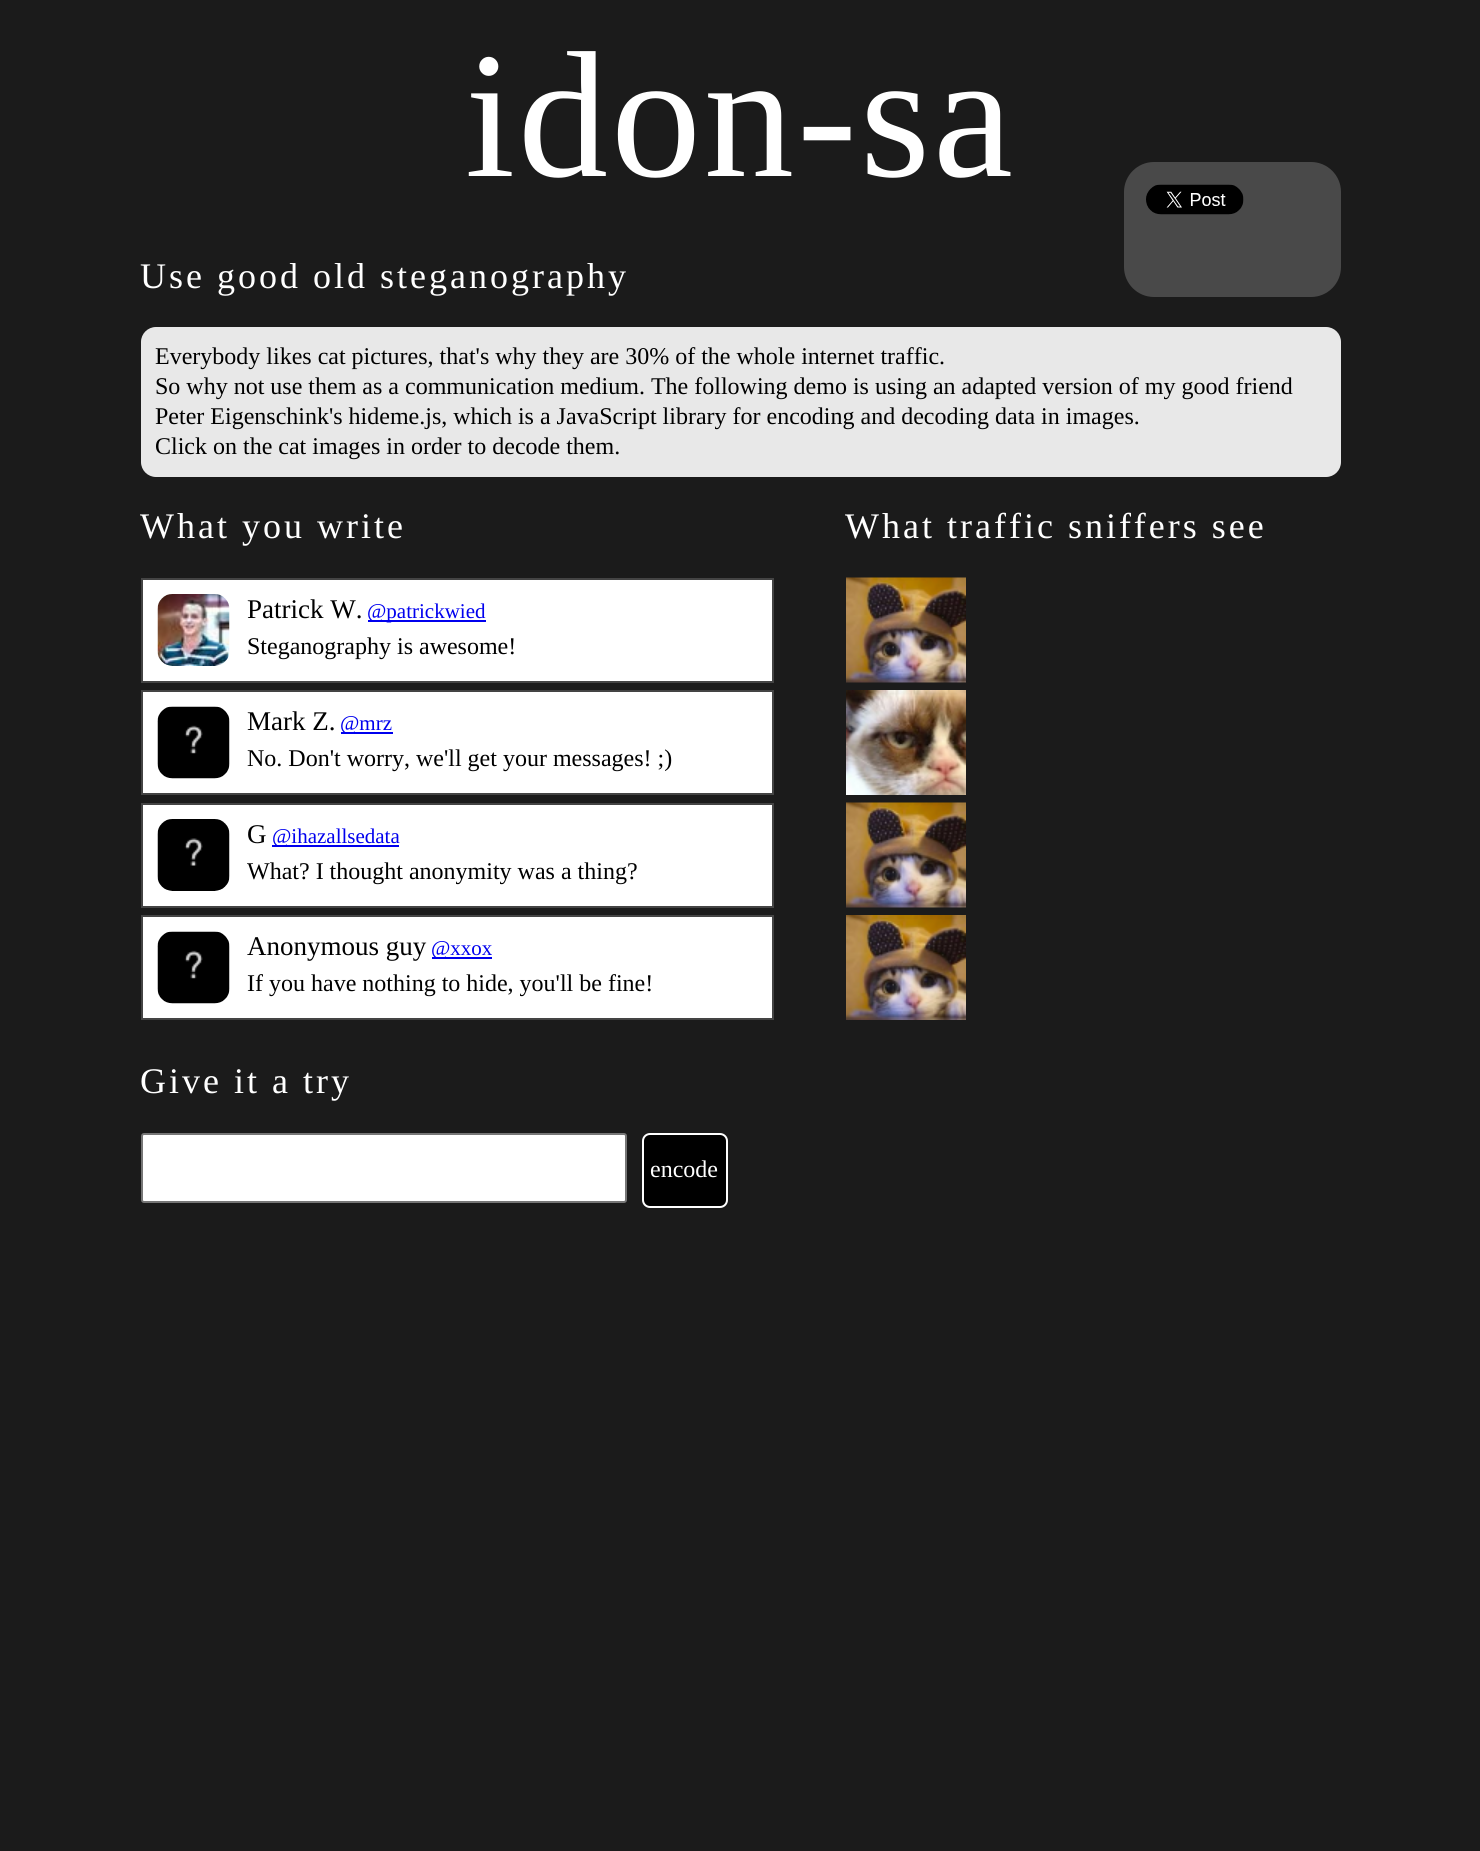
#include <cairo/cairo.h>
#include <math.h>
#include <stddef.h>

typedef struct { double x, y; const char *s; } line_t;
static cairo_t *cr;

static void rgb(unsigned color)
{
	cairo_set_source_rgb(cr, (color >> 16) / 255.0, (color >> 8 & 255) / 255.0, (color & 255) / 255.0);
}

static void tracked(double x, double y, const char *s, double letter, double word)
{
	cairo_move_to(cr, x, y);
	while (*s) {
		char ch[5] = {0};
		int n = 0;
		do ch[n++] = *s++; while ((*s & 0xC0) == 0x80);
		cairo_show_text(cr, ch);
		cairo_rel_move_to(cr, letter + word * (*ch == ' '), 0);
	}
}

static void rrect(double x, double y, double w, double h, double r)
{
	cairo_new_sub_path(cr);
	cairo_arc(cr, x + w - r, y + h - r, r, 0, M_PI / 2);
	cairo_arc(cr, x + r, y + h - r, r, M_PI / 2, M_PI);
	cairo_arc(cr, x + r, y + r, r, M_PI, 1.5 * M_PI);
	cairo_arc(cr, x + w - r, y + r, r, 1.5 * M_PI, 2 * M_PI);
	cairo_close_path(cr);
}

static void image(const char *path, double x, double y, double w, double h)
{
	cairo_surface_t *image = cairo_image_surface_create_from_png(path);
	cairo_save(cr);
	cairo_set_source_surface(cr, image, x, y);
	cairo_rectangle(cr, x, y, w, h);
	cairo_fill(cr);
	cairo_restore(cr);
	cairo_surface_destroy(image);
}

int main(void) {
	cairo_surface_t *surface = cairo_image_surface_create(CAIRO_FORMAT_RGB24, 1480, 1851);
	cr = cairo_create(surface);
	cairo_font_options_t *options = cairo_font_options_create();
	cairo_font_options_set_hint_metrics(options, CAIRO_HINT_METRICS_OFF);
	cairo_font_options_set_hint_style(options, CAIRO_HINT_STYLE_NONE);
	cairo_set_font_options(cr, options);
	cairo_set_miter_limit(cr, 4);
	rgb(0x1b1b1b);
	cairo_paint(cr);
	rgb(0x494949);
	rrect(1124, 162, 217, 135, 30);
	cairo_fill(cr);
	image("img/1.png", 1146, 184, 98, 31);
	rgb(0xe8e8e8);
	rrect(141, 327, 1200, 150, 15);
	cairo_fill(cr);
	rgb(0xffffff);
	cairo_rectangle(cr, 142, 579, 631, 103);
	cairo_fill_preserve(cr);
	rgb(0x444444);
	cairo_stroke(cr);
	image("img/2.png", 157, 594, 73, 72);
	rgb(0x0000ee);
	cairo_rectangle(cr, 368, 620, 118, 2);
	cairo_fill(cr);
	rgb(0xffffff);
	cairo_rectangle(cr, 142, 691, 631, 103);
	cairo_fill_preserve(cr);
	rgb(0x444444);
	cairo_stroke(cr);
	image("img/3.png", 157, 706, 73, 73);
	rgb(0x0000ee);
	cairo_rectangle(cr, 341, 732, 52, 2);
	cairo_fill(cr);
	rgb(0xffffff);
	cairo_rectangle(cr, 142, 804, 631, 103);
	cairo_fill_preserve(cr);
	rgb(0x444444);
	cairo_stroke(cr);
	image("img/4.png", 157, 819, 73, 72);
	rgb(0x0000ee);
	cairo_rectangle(cr, 272, 845, 127, 2);
	cairo_fill(cr);
	rgb(0xffffff);
	cairo_rectangle(cr, 142, 916, 631, 103);
	cairo_fill_preserve(cr);
	rgb(0x444444);
	cairo_stroke(cr);
	image("img/3.png", 157, 931, 73, 73);
	rgb(0x0000ee);
	cairo_rectangle(cr, 432, 957, 60, 2);
	cairo_fill(cr);
	image("img/5.png", 846, 577, 120, 106);
	image("img/6.png", 846, 690, 120, 105);
	image("img/7.png", 846, 802, 120, 106);
	image("img/8.png", 846, 915, 120, 105);
	rgb(0xffffff);
	rrect(142, 1134, 484, 68, 2);
	cairo_fill_preserve(cr);
	rgb(0x767676);
	cairo_stroke(cr);
	rgb(0x000000);
	rrect(643, 1134, 84, 73, 7);
	cairo_fill_preserve(cr);
	rgb(0xffffff);
	cairo_stroke(cr);
	cairo_select_font_face(cr, "Liberation Serif", CAIRO_FONT_SLANT_NORMAL, CAIRO_FONT_WEIGHT_NORMAL);
	cairo_set_font_size(cr, 180);
	tracked(465, 176, "idon-sa", 3, 0);
	cairo_set_font_size(cr, 36);
	tracked(140, 288, "Use good old steganography", 3, 0);
	cairo_set_font_size(cr, 24);
	rgb(0x000000);
	{
		static const line_t items[] = {
			{155, 364, "Everybody likes cat pictures, that's why they are 30% of the whole internet traffic."},
			{155, 394, "So why not use them as a communication medium. The following demo is using an adapted version of my good friend"},
			{155, 424, "Peter Eigenschink's hideme.js, which is a JavaScript library for encoding and decoding data in images."},
			{155, 454, "Click on the cat images in order to decode them."},
		};
		for (size_t i = 0; i < sizeof items / sizeof *items; i++) {
			cairo_move_to(cr, items[i].x, items[i].y);
			cairo_show_text(cr, items[i].s);
		}
	}
	cairo_set_font_size(cr, 36);
	rgb(0xffffff);
	tracked(140, 538, "What you write", 3, 0);
	cairo_set_font_size(cr, 27);
	rgb(0x000000);
	cairo_move_to(cr, 247, 618);
	cairo_show_text(cr, "Patrick W.");
	cairo_set_font_size(cr, 21);
	rgb(0x0000ee);
	cairo_move_to(cr, 367, 618);
	cairo_show_text(cr, "@patrickwied");
	cairo_set_font_size(cr, 24);
	rgb(0x000000);
	cairo_move_to(cr, 247, 654);
	cairo_show_text(cr, "Steganography is awesome!");
	cairo_set_font_size(cr, 27);
	cairo_move_to(cr, 247, 730);
	cairo_show_text(cr, "Mark Z.");
	cairo_set_font_size(cr, 21);
	rgb(0x0000ee);
	cairo_move_to(cr, 340, 730);
	cairo_show_text(cr, "@mrz");
	cairo_set_font_size(cr, 24);
	rgb(0x000000);
	cairo_move_to(cr, 247, 766);
	cairo_show_text(cr, "No. Don't worry, we'll get your messages! ;)");
	cairo_set_font_size(cr, 27);
	cairo_move_to(cr, 247, 843);
	cairo_show_text(cr, "G");
	cairo_set_font_size(cr, 21);
	rgb(0x0000ee);
	cairo_move_to(cr, 272, 843);
	cairo_show_text(cr, "@ihazallsedata");
	cairo_set_font_size(cr, 24);
	rgb(0x000000);
	cairo_move_to(cr, 247, 879);
	cairo_show_text(cr, "What? I thought anonymity was a thing?");
	cairo_set_font_size(cr, 27);
	cairo_move_to(cr, 247, 955);
	cairo_show_text(cr, "Anonymous guy");
	cairo_set_font_size(cr, 21);
	rgb(0x0000ee);
	cairo_move_to(cr, 431, 955);
	cairo_show_text(cr, "@xxox");
	cairo_set_font_size(cr, 24);
	rgb(0x000000);
	cairo_move_to(cr, 247, 991);
	cairo_show_text(cr, "If you have nothing to hide, you'll be fine!");
	cairo_set_font_size(cr, 36);
	rgb(0xffffff);
	tracked(845, 538, "What traffic sniffers see", 3, 0);
	tracked(140, 1093, "Give it a try", 3, 0);
	cairo_set_font_size(cr, 24);
	cairo_move_to(cr, 650, 1177);
	cairo_show_text(cr, "encode");
	cairo_surface_write_to_png(surface, "page.png");
	cairo_font_options_destroy(options);
	cairo_destroy(cr);
	cairo_surface_destroy(surface);
	return 0;
}
